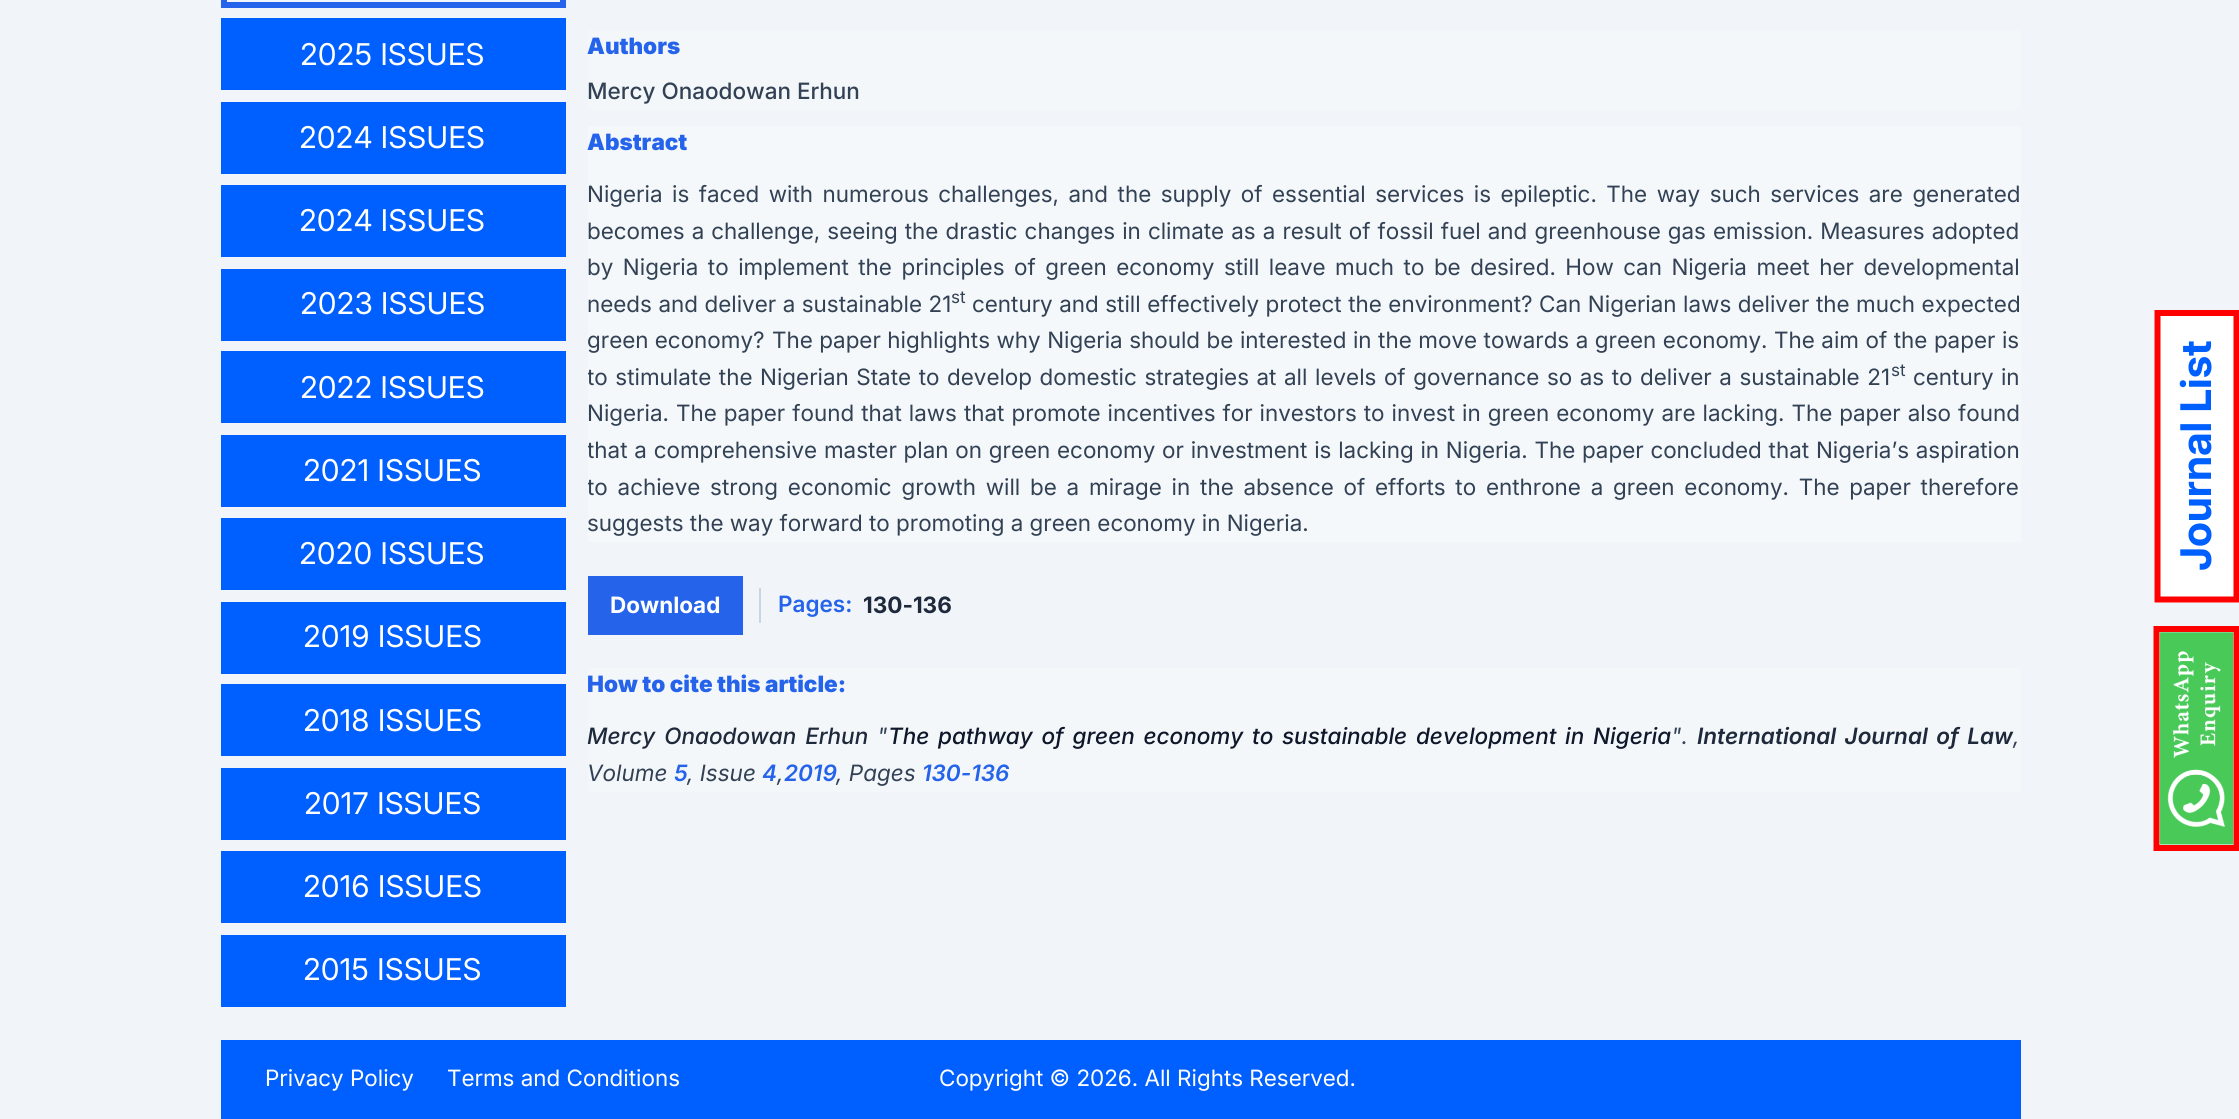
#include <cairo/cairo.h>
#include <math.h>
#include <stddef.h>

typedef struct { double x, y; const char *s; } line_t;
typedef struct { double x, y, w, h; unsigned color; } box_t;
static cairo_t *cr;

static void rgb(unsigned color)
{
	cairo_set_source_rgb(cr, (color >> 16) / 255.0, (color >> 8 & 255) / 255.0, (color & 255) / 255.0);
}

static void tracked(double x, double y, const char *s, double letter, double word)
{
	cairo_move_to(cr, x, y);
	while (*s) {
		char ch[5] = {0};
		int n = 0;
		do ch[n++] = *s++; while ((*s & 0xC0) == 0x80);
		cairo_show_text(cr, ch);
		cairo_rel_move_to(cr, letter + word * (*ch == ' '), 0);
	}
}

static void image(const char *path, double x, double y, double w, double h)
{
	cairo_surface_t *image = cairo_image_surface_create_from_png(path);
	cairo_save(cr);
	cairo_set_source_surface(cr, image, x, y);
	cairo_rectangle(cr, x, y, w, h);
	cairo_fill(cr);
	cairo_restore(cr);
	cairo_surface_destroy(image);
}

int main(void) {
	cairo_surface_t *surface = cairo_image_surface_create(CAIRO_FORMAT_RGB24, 2239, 1119);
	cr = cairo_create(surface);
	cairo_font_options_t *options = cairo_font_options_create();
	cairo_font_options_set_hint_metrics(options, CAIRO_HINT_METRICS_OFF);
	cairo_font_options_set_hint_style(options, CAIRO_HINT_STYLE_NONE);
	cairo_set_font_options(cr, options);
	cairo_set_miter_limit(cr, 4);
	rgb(0xf1f5f9);
	cairo_paint(cr);
	{
		static const box_t items[] = {
			{560, 0, 6, 8, 0x2563eb},
			{221, 2, 345, 6, 0x2563eb},
			{221, 0, 6, 8, 0x2563eb},
			{221, 18, 345, 72, 0x005fff},
			{221, 102, 345, 72, 0x005fff},
			{221, 185, 345, 72, 0x005fff},
			{221, 269, 345, 72, 0x005fff},
			{221, 351, 345, 72, 0x005fff},
			{221, 435, 345, 72, 0x005fff},
			{221, 518, 345, 72, 0x005fff},
			{221, 602, 345, 72, 0x005fff},
			{221, 684, 345, 72, 0x005fff},
			{221, 768, 345, 72, 0x005fff},
			{221, 851, 345, 72, 0x005fff},
			{221, 935, 345, 72, 0x005fff},
			{588, 30, 1433, 80, 0xf4f7fa},
			{588, 126, 1433, 416, 0xf4f8fa},
			{588, 576, 155, 59, 0x2563eb},
			{759, 588, 2, 35, 0xcbd5e1},
			{588, 668, 1433, 124, 0xf4f7fa},
			{221, 1040, 1800, 79, 0x005fff},
			{2154, 310, 85, 293, 0xffffff},
		};
		for (size_t i = 0; i < sizeof items / sizeof *items; i++) {
			rgb(items[i].color);
			cairo_rectangle(cr, items[i].x, items[i].y, items[i].w, items[i].h);
			cairo_fill(cr);
		}
	}
	cairo_new_path(cr);
	cairo_move_to(cr, 2157.5, 599.5);
	cairo_line_to(cr, 2157.5, 313);
	cairo_line_to(cr, 2236.5, 313);
	cairo_line_to(cr, 2236.5, 599.5);
	cairo_close_path(cr);
	rgb(0xff0000);
	cairo_set_line_width(cr, 6);
	cairo_stroke(cr);
	cairo_new_path(cr);
	cairo_move_to(cr, 2156.5, 848);
	cairo_line_to(cr, 2156.5, 629);
	cairo_line_to(cr, 2236.5, 629);
	cairo_line_to(cr, 2236.5, 848);
	cairo_close_path(cr);
	cairo_stroke(cr);
	image("img/1.png", 2159, 631, 75, 214);
	cairo_select_font_face(cr, "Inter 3", CAIRO_FONT_SLANT_NORMAL, CAIRO_FONT_WEIGHT_NORMAL);
	cairo_set_font_size(cr, 30);
	rgb(0xffffff);
	{
		static const line_t items[] = {
			{300, 65, "2025 ISSUES"},
			{299, 148, "2024 ISSUES"},
			{299, 231, "2024 ISSUES"},
			{300, 314, "2023 ISSUES"},
			{300, 398, "2022 ISSUES"},
			{303, 481, "2021 ISSUES"},
			{299, 564, "2020 ISSUES"},
			{303, 647, "2019 ISSUES"},
			{303, 731, "2018 ISSUES"},
			{304, 814, "2017 ISSUES"},
			{303, 897, "2016 ISSUES"},
			{303, 980, "2015 ISSUES"},
		};
		for (size_t i = 0; i < sizeof items / sizeof *items; i++) {
			cairo_move_to(cr, items[i].x, items[i].y);
			cairo_show_text(cr, items[i].s);
		}
	}
	cairo_select_font_face(cr, "Inter Black", CAIRO_FONT_SLANT_NORMAL, CAIRO_FONT_WEIGHT_NORMAL);
	cairo_set_font_size(cr, 22.5);
	rgb(0x2563eb);
	cairo_move_to(cr, 587, 54);
	cairo_show_text(cr, "Authors");
	cairo_select_font_face(cr, "Inter Medium", CAIRO_FONT_SLANT_NORMAL, CAIRO_FONT_WEIGHT_NORMAL);
	rgb(0x334155);
	cairo_move_to(cr, 587, 99);
	cairo_show_text(cr, "Mercy Onaodowan Erhun");
	cairo_select_font_face(cr, "Inter Black", CAIRO_FONT_SLANT_NORMAL, CAIRO_FONT_WEIGHT_NORMAL);
	rgb(0x2563eb);
	cairo_move_to(cr, 587, 150);
	cairo_show_text(cr, "Abstract");
	cairo_select_font_face(cr, "Inter", CAIRO_FONT_SLANT_NORMAL, CAIRO_FONT_WEIGHT_NORMAL);
	rgb(0x334155);
	tracked(587, 202, "Nigeria is faced with numerous challenges, and the supply of essential services is epileptic. The way such services are generated", 0, 3.25);
	tracked(587, 239, "becomes a challenge, seeing the drastic changes in climate as a result of fossil fuel and greenhouse gas emission. Measures adopted", 0, 0.8);
	tracked(587, 275, "by Nigeria to implement the principles of green economy still leave much to be desired. How can Nigeria meet her developmental", 0, 3.25);
	tracked(587, 312, "needs and deliver a sustainable 21", 0, 0.25);
	cairo_select_font_face(cr, "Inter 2", CAIRO_FONT_SLANT_NORMAL, CAIRO_FONT_WEIGHT_NORMAL);
	cairo_set_font_size(cr, 17);
	cairo_move_to(cr, 951, 303);
	cairo_show_text(cr, "st");
	cairo_select_font_face(cr, "Inter", CAIRO_FONT_SLANT_NORMAL, CAIRO_FONT_WEIGHT_NORMAL);
	cairo_set_font_size(cr, 22.5);
	tracked(972, 312, "century and still effectively protect the environment? Can Nigerian laws deliver the much expected", 0, 0.25);
	cairo_move_to(cr, 587, 348);
	cairo_show_text(cr, "green economy?");
	tracked(772, 348, "The paper highlights why Nigeria should be interested in the move towards a green economy. The aim of the paper is", 0, 0.25);
	cairo_save(cr);
	cairo_rectangle(cr, 588, 0, 1433, 1017);
	cairo_clip(cr);
	tracked(587, 385, "to stimulate the Nigerian State to develop domestic strategies at all levels of governance so as to deliver a sustainable 21", 0, 1.3);
	cairo_restore(cr);
	cairo_select_font_face(cr, "Inter 2", CAIRO_FONT_SLANT_NORMAL, CAIRO_FONT_WEIGHT_NORMAL);
	cairo_set_font_size(cr, 17);
	cairo_move_to(cr, 1891, 376);
	cairo_show_text(cr, "st");
	cairo_select_font_face(cr, "Inter", CAIRO_FONT_SLANT_NORMAL, CAIRO_FONT_WEIGHT_NORMAL);
	cairo_set_font_size(cr, 22.5);
	tracked(1913, 385, "century in", 0, 1);
	tracked(587, 421, "Nigeria. The paper found that laws that promote incentives for investors to invest in green economy are lacking. The paper also found", 0, 0.75);
	cairo_save(cr);
	cairo_rectangle(cr, 588, 0, 1433, 1017);
	cairo_clip(cr);
	tracked(587, 458, "that a comprehensive master plan on green economy or investment is lacking in Nigeria. The paper concluded that Nigeria’s aspiration", 0, 0.5);
	tracked(587, 495, "to achieve strong economic growth will be a mirage in the absence of efforts to enthrone a green economy. The paper therefore", 0, 3.5);
	cairo_restore(cr);
	cairo_move_to(cr, 587, 531);
	cairo_show_text(cr, "suggests the way forward to promoting a green economy in Nigeria.");
	cairo_select_font_face(cr, "Inter", CAIRO_FONT_SLANT_NORMAL, CAIRO_FONT_WEIGHT_BOLD);
	rgb(0xffffff);
	cairo_move_to(cr, 610, 613);
	cairo_show_text(cr, "Download");
	cairo_select_font_face(cr, "Inter SemiBold", CAIRO_FONT_SLANT_NORMAL, CAIRO_FONT_WEIGHT_NORMAL);
	rgb(0x2563eb);
	cairo_move_to(cr, 778, 612);
	cairo_show_text(cr, "Pages:");
	cairo_select_font_face(cr, "Inter", CAIRO_FONT_SLANT_NORMAL, CAIRO_FONT_WEIGHT_BOLD);
	rgb(0x1e293b);
	cairo_move_to(cr, 863, 613);
	cairo_show_text(cr, "130-136");
	cairo_select_font_face(cr, "Inter Black", CAIRO_FONT_SLANT_NORMAL, CAIRO_FONT_WEIGHT_NORMAL);
	rgb(0x2563eb);
	cairo_move_to(cr, 587, 692);
	cairo_show_text(cr, "How to cite this article:");
	cairo_select_font_face(cr, "Inter Medium", CAIRO_FONT_SLANT_ITALIC, CAIRO_FONT_WEIGHT_NORMAL);
	rgb(0x1e293b);
	tracked(587, 744, "Mercy Onaodowan Erhun", 0, 3);
	cairo_select_font_face(cr, "Inter", CAIRO_FONT_SLANT_ITALIC, CAIRO_FONT_WEIGHT_NORMAL);
	rgb(0x334155);
	cairo_move_to(cr, 877, 744);
	cairo_show_text(cr, "\"");
	cairo_select_font_face(cr, "Inter Medium", CAIRO_FONT_SLANT_ITALIC, CAIRO_FONT_WEIGHT_NORMAL);
	rgb(0x0f172a);
	tracked(888, 744, "The pathway of green economy to sustainable development in Nigeria", 0, 2.75);
	cairo_select_font_face(cr, "Inter", CAIRO_FONT_SLANT_ITALIC, CAIRO_FONT_WEIGHT_NORMAL);
	rgb(0x334155);
	cairo_move_to(cr, 1671, 744);
	cairo_show_text(cr, "\".");
	cairo_select_font_face(cr, "Inter SemiBold", CAIRO_FONT_SLANT_ITALIC, CAIRO_FONT_WEIGHT_NORMAL);
	rgb(0x1e293b);
	tracked(1697, 744, "International Journal of Law", 0, 2.75);
	cairo_select_font_face(cr, "Inter", CAIRO_FONT_SLANT_ITALIC, CAIRO_FONT_WEIGHT_NORMAL);
	rgb(0x334155);
	cairo_move_to(cr, 2013, 744);
	cairo_show_text(cr, ",");
	cairo_move_to(cr, 587, 781);
	cairo_show_text(cr, "Volume");
	cairo_select_font_face(cr, "Inter SemiBold", CAIRO_FONT_SLANT_ITALIC, CAIRO_FONT_WEIGHT_NORMAL);
	rgb(0x2563eb);
	cairo_move_to(cr, 674, 781);
	cairo_show_text(cr, "5");
	cairo_select_font_face(cr, "Inter", CAIRO_FONT_SLANT_ITALIC, CAIRO_FONT_WEIGHT_NORMAL);
	rgb(0x334155);
	cairo_move_to(cr, 687, 781);
	cairo_show_text(cr, ", Issue");
	cairo_select_font_face(cr, "Inter SemiBold", CAIRO_FONT_SLANT_ITALIC, CAIRO_FONT_WEIGHT_NORMAL);
	rgb(0x2563eb);
	cairo_move_to(cr, 762, 781);
	cairo_show_text(cr, "4");
	cairo_select_font_face(cr, "Inter", CAIRO_FONT_SLANT_ITALIC, CAIRO_FONT_WEIGHT_NORMAL);
	rgb(0x334155);
	cairo_move_to(cr, 777, 781);
	cairo_show_text(cr, ",");
	cairo_select_font_face(cr, "Inter SemiBold", CAIRO_FONT_SLANT_ITALIC, CAIRO_FONT_WEIGHT_NORMAL);
	rgb(0x2563eb);
	cairo_move_to(cr, 784, 781);
	cairo_show_text(cr, "2019");
	cairo_select_font_face(cr, "Inter", CAIRO_FONT_SLANT_ITALIC, CAIRO_FONT_WEIGHT_NORMAL);
	rgb(0x334155);
	cairo_move_to(cr, 836, 781);
	cairo_show_text(cr, ", Pages");
	cairo_select_font_face(cr, "Inter SemiBold", CAIRO_FONT_SLANT_ITALIC, CAIRO_FONT_WEIGHT_NORMAL);
	rgb(0x2563eb);
	cairo_move_to(cr, 922, 781);
	cairo_show_text(cr, "130-136");
	cairo_select_font_face(cr, "Inter 2", CAIRO_FONT_SLANT_NORMAL, CAIRO_FONT_WEIGHT_BOLD);
	cairo_set_font_size(cr, 42.25);
	rgb(0x005fff);
	cairo_save(cr);
	cairo_translate(cr, 2211, 571);
	cairo_rotate(cr, -90 * M_PI / 180);
	cairo_move_to(cr, 0, 0);
	cairo_show_text(cr, "Journal List");
	cairo_restore(cr);
	cairo_select_font_face(cr, "Inter", CAIRO_FONT_SLANT_NORMAL, CAIRO_FONT_WEIGHT_NORMAL);
	cairo_set_font_size(cr, 22.5);
	rgb(0xffffff);
	{
		static const line_t items[] = {
			{265, 1086, "Privacy Policy"},
			{447, 1086, "Terms and Conditions"},
			{939, 1086, "Copyright © 2026. All Rights Reserved."},
		};
		for (size_t i = 0; i < sizeof items / sizeof *items; i++) {
			cairo_move_to(cr, items[i].x, items[i].y);
			cairo_show_text(cr, items[i].s);
		}
	}
	cairo_surface_write_to_png(surface, "page.png");
	cairo_font_options_destroy(options);
	cairo_destroy(cr);
	cairo_surface_destroy(surface);
	return 0;
}
